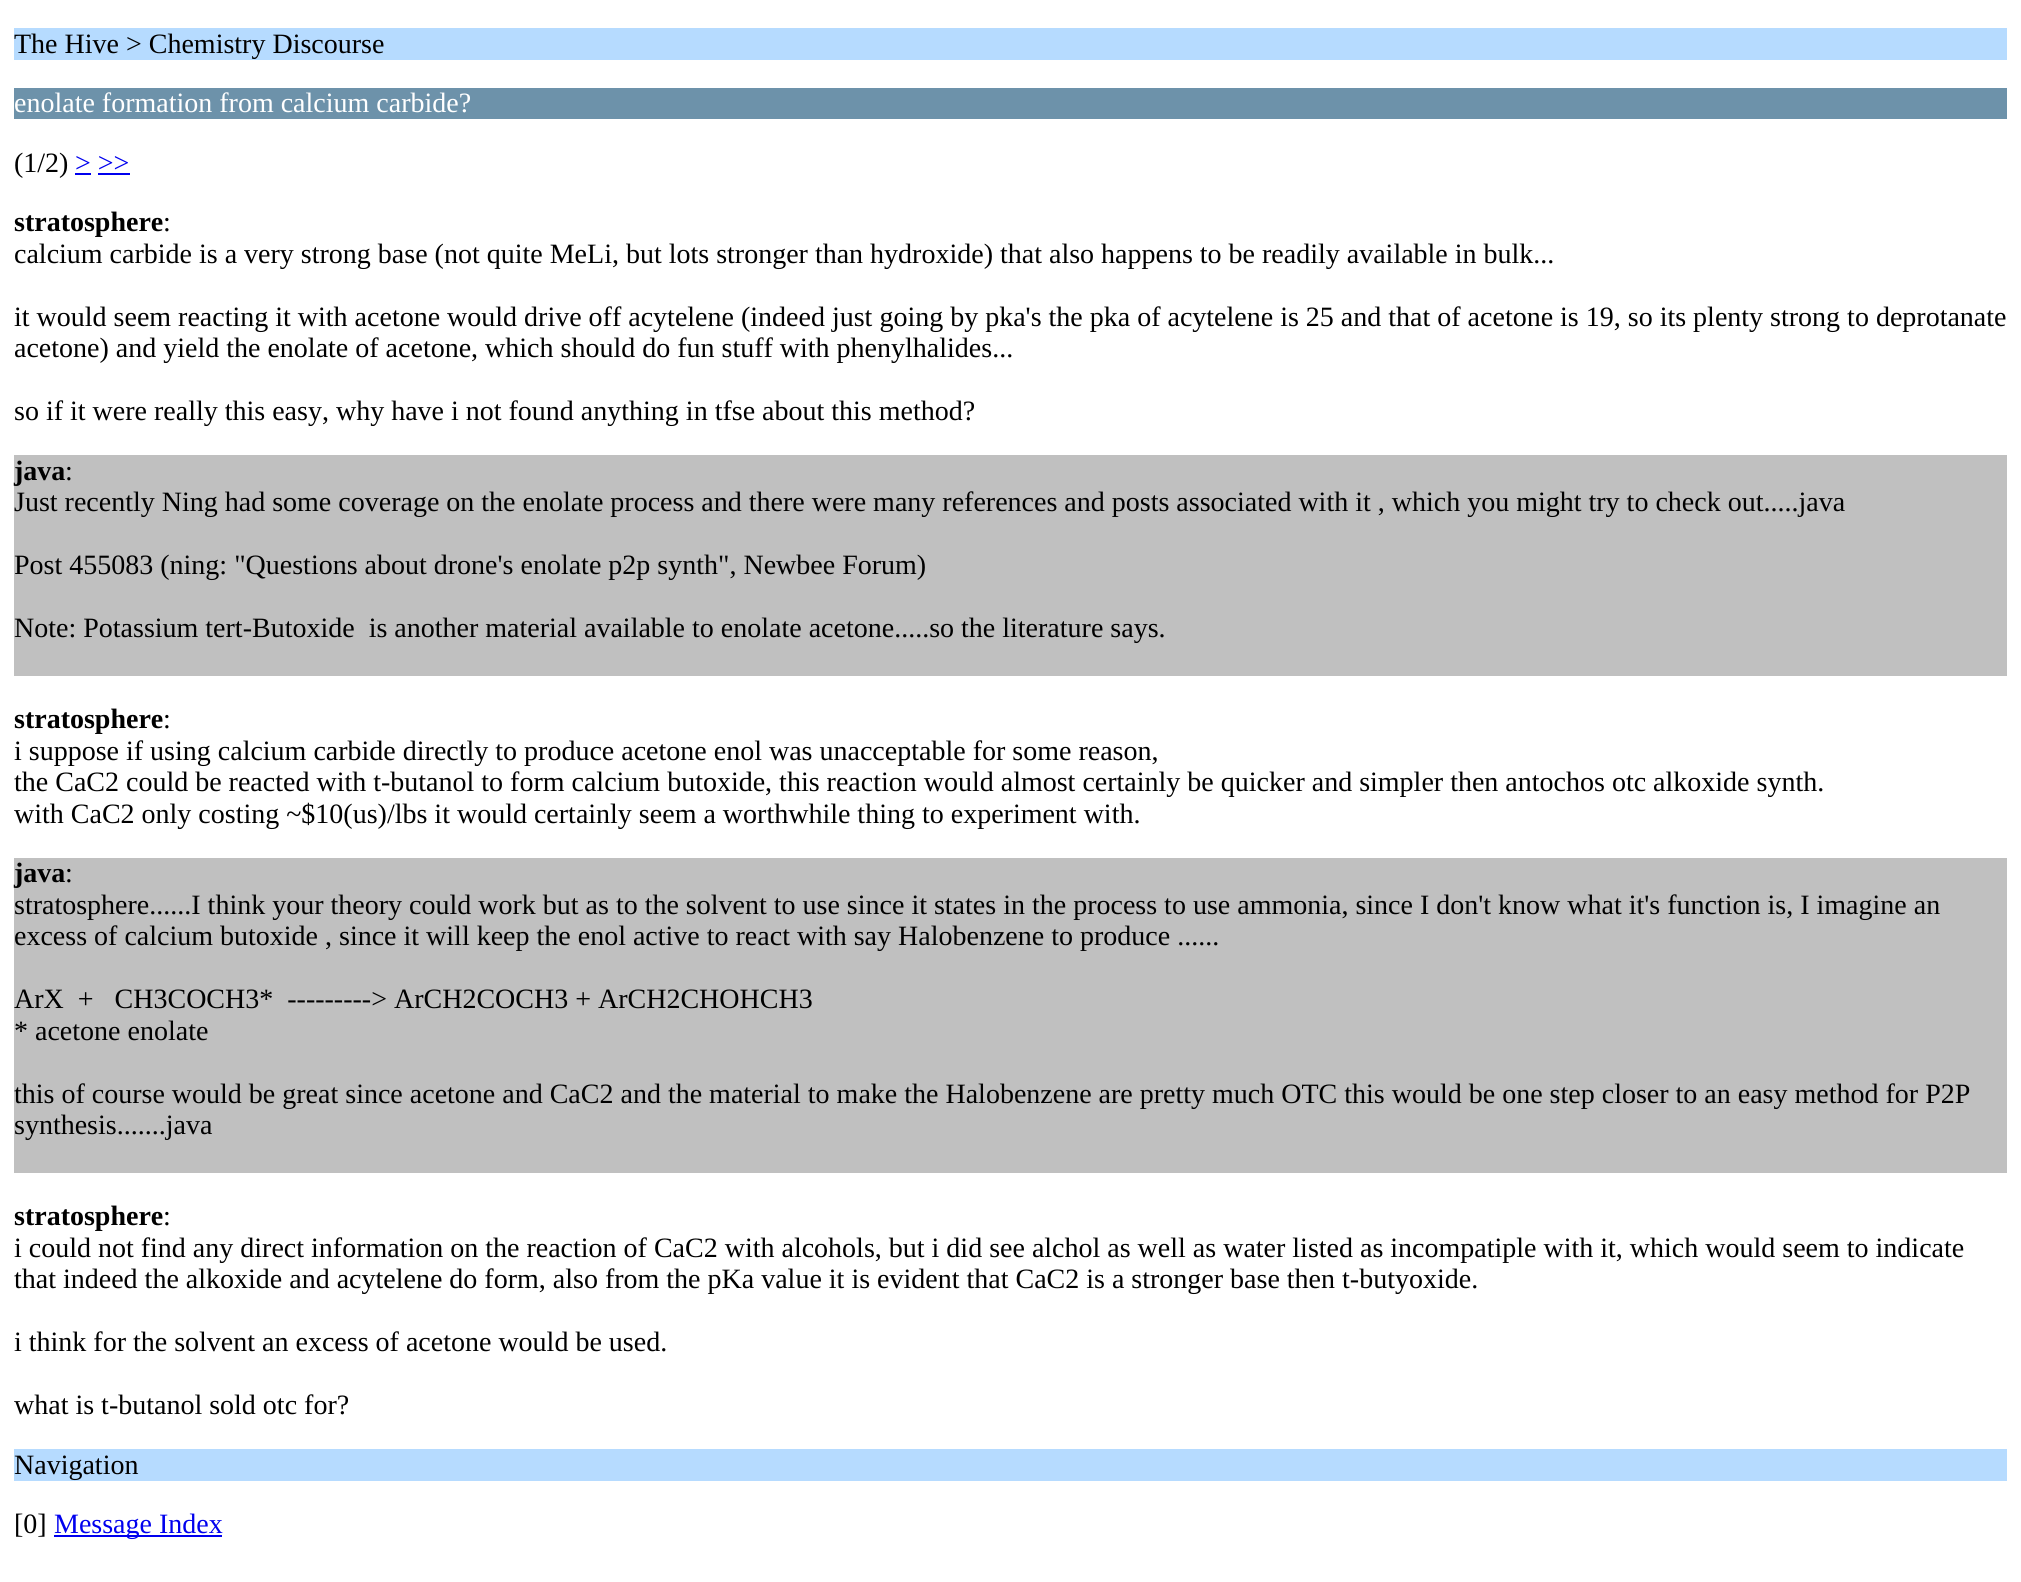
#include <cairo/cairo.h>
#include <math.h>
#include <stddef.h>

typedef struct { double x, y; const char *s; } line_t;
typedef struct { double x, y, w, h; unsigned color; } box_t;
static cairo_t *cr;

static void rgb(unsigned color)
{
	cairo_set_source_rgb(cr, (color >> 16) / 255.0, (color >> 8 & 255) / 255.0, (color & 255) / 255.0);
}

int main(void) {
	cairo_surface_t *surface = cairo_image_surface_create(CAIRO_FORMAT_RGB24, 2021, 1582);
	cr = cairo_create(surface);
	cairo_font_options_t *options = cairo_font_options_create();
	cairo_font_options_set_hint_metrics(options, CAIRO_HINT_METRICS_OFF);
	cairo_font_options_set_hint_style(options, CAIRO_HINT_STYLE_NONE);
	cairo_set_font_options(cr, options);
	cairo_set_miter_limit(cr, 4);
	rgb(0xffffff);
	cairo_paint(cr);
	{
		static const box_t items[] = {
			{14, 28, 1993, 32, 0xb6dbff},
			{14, 88, 1993, 31, 0x6d92aa},
			{75, 173, 16, 2, 0x0000ee},
			{98, 173, 32, 2, 0x0000ee},
			{14, 455, 1993, 221, 0xc0c0c0},
			{14, 858, 1993, 315, 0xc0c0c0},
			{14, 1449, 1993, 32, 0xb6dbff},
			{54, 1535, 168, 2, 0x0000ee},
		};
		for (size_t i = 0; i < sizeof items / sizeof *items; i++) {
			rgb(items[i].color);
			cairo_rectangle(cr, items[i].x, items[i].y, items[i].w, items[i].h);
			cairo_fill(cr);
		}
	}
	cairo_select_font_face(cr, "Liberation Serif", CAIRO_FONT_SLANT_NORMAL, CAIRO_FONT_WEIGHT_NORMAL);
	cairo_set_font_size(cr, 28);
	rgb(0x000000);
	cairo_move_to(cr, 14, 53);
	cairo_show_text(cr, "The Hive > Chemistry Discourse");
	rgb(0xffffff);
	cairo_move_to(cr, 14, 112);
	cairo_show_text(cr, "enolate formation from calcium carbide?");
	rgb(0x000000);
	cairo_move_to(cr, 14, 172);
	cairo_show_text(cr, "(1/2)");
	rgb(0x0000ee);
	cairo_move_to(cr, 75, 172);
	cairo_show_text(cr, "> >>");
	cairo_select_font_face(cr, "Liberation Serif", CAIRO_FONT_SLANT_NORMAL, CAIRO_FONT_WEIGHT_BOLD);
	rgb(0x000000);
	cairo_move_to(cr, 14, 231);
	cairo_show_text(cr, "stratosphere");
	cairo_select_font_face(cr, "Liberation Serif", CAIRO_FONT_SLANT_NORMAL, CAIRO_FONT_WEIGHT_NORMAL);
	{
		static const line_t items[] = {
			{163, 231, ":"},
			{14, 263, "calcium carbide is a very strong base (not quite MeLi, but lots stronger than hydroxide) that also happens to be readily available in bulk..."},
			{14, 326, "it would seem reacting it with acetone would drive off acytelene (indeed just going by pka's the pka of acytelene is 25 and that of acetone is 19, so its plenty strong to deprotanate"},
			{14, 357, "acetone) and yield the enolate of acetone, which should do fun stuff with phenylhalides..."},
			{14, 420, "so if it were really this easy, why have i not found anything in tfse about this method?"},
		};
		for (size_t i = 0; i < sizeof items / sizeof *items; i++) {
			cairo_move_to(cr, items[i].x, items[i].y);
			cairo_show_text(cr, items[i].s);
		}
	}
	cairo_select_font_face(cr, "Liberation Serif", CAIRO_FONT_SLANT_NORMAL, CAIRO_FONT_WEIGHT_BOLD);
	cairo_move_to(cr, 14, 480);
	cairo_show_text(cr, "java");
	cairo_select_font_face(cr, "Liberation Serif", CAIRO_FONT_SLANT_NORMAL, CAIRO_FONT_WEIGHT_NORMAL);
	{
		static const line_t items[] = {
			{65, 480, ":"},
			{14, 511, "Just recently Ning had some coverage on the enolate process and there were many references and posts associated with it , which you might try to check out.....java"},
			{14, 574, "Post 455083 (ning: \"Questions about drone's enolate p2p synth\", Newbee Forum)"},
			{14, 637, "Note: Potassium tert-Butoxide  is another material available to enolate acetone.....so the literature says."},
		};
		for (size_t i = 0; i < sizeof items / sizeof *items; i++) {
			cairo_move_to(cr, items[i].x, items[i].y);
			cairo_show_text(cr, items[i].s);
		}
	}
	cairo_select_font_face(cr, "Liberation Serif", CAIRO_FONT_SLANT_NORMAL, CAIRO_FONT_WEIGHT_BOLD);
	cairo_move_to(cr, 14, 728);
	cairo_show_text(cr, "stratosphere");
	cairo_select_font_face(cr, "Liberation Serif", CAIRO_FONT_SLANT_NORMAL, CAIRO_FONT_WEIGHT_NORMAL);
	{
		static const line_t items[] = {
			{163, 728, ":"},
			{14, 760, "i suppose if using calcium carbide directly to produce acetone enol was unacceptable for some reason,"},
			{14, 791, "the CaC2 could be reacted with t-butanol to form calcium butoxide, this reaction would almost certainly be quicker and simpler then antochos otc alkoxide synth."},
			{14, 823, "with CaC2 only costing ~$10(us)/lbs it would certainly seem a worthwhile thing to experiment with."},
		};
		for (size_t i = 0; i < sizeof items / sizeof *items; i++) {
			cairo_move_to(cr, items[i].x, items[i].y);
			cairo_show_text(cr, items[i].s);
		}
	}
	cairo_select_font_face(cr, "Liberation Serif", CAIRO_FONT_SLANT_NORMAL, CAIRO_FONT_WEIGHT_BOLD);
	cairo_move_to(cr, 14, 882);
	cairo_show_text(cr, "java");
	cairo_select_font_face(cr, "Liberation Serif", CAIRO_FONT_SLANT_NORMAL, CAIRO_FONT_WEIGHT_NORMAL);
	{
		static const line_t items[] = {
			{65, 882, ":"},
			{14, 914, "stratosphere......I think your theory could work but as to the solvent to use since it states in the process to use ammonia, since I don't know what it's function is, I imagine an"},
			{14, 945, "excess of calcium butoxide , since it will keep the enol active to react with say Halobenzene to produce ......"},
			{14, 1008, "ArX  +   CH3COCH3*  ---------> ArCH2COCH3 + ArCH2CHOHCH3"},
			{14, 1040, "* acetone enolate"},
			{14, 1103, "this of course would be great since acetone and CaC2 and the material to make the Halobenzene are pretty much OTC this would be one step closer to an easy method for P2P"},
			{14, 1134, "synthesis.......java"},
		};
		for (size_t i = 0; i < sizeof items / sizeof *items; i++) {
			cairo_move_to(cr, items[i].x, items[i].y);
			cairo_show_text(cr, items[i].s);
		}
	}
	cairo_select_font_face(cr, "Liberation Serif", CAIRO_FONT_SLANT_NORMAL, CAIRO_FONT_WEIGHT_BOLD);
	cairo_move_to(cr, 14, 1225);
	cairo_show_text(cr, "stratosphere");
	cairo_select_font_face(cr, "Liberation Serif", CAIRO_FONT_SLANT_NORMAL, CAIRO_FONT_WEIGHT_NORMAL);
	{
		static const line_t items[] = {
			{163, 1225, ":"},
			{14, 1257, "i could not find any direct information on the reaction of CaC2 with alcohols, but i did see alchol as well as water listed as incompatiple with it, which would seem to indicate"},
			{14, 1288, "that indeed the alkoxide and acytelene do form, also from the pKa value it is evident that CaC2 is a stronger base then t-butyoxide."},
			{14, 1351, "i think for the solvent an excess of acetone would be used."},
			{14, 1414, "what is t-butanol sold otc for?"},
			{14, 1474, "Navigation"},
			{14, 1533, "[0]"},
		};
		for (size_t i = 0; i < sizeof items / sizeof *items; i++) {
			cairo_move_to(cr, items[i].x, items[i].y);
			cairo_show_text(cr, items[i].s);
		}
	}
	rgb(0x0000ee);
	cairo_move_to(cr, 54, 1533);
	cairo_show_text(cr, "Message Index");
	cairo_surface_write_to_png(surface, "page.png");
	cairo_font_options_destroy(options);
	cairo_destroy(cr);
	cairo_surface_destroy(surface);
	return 0;
}
